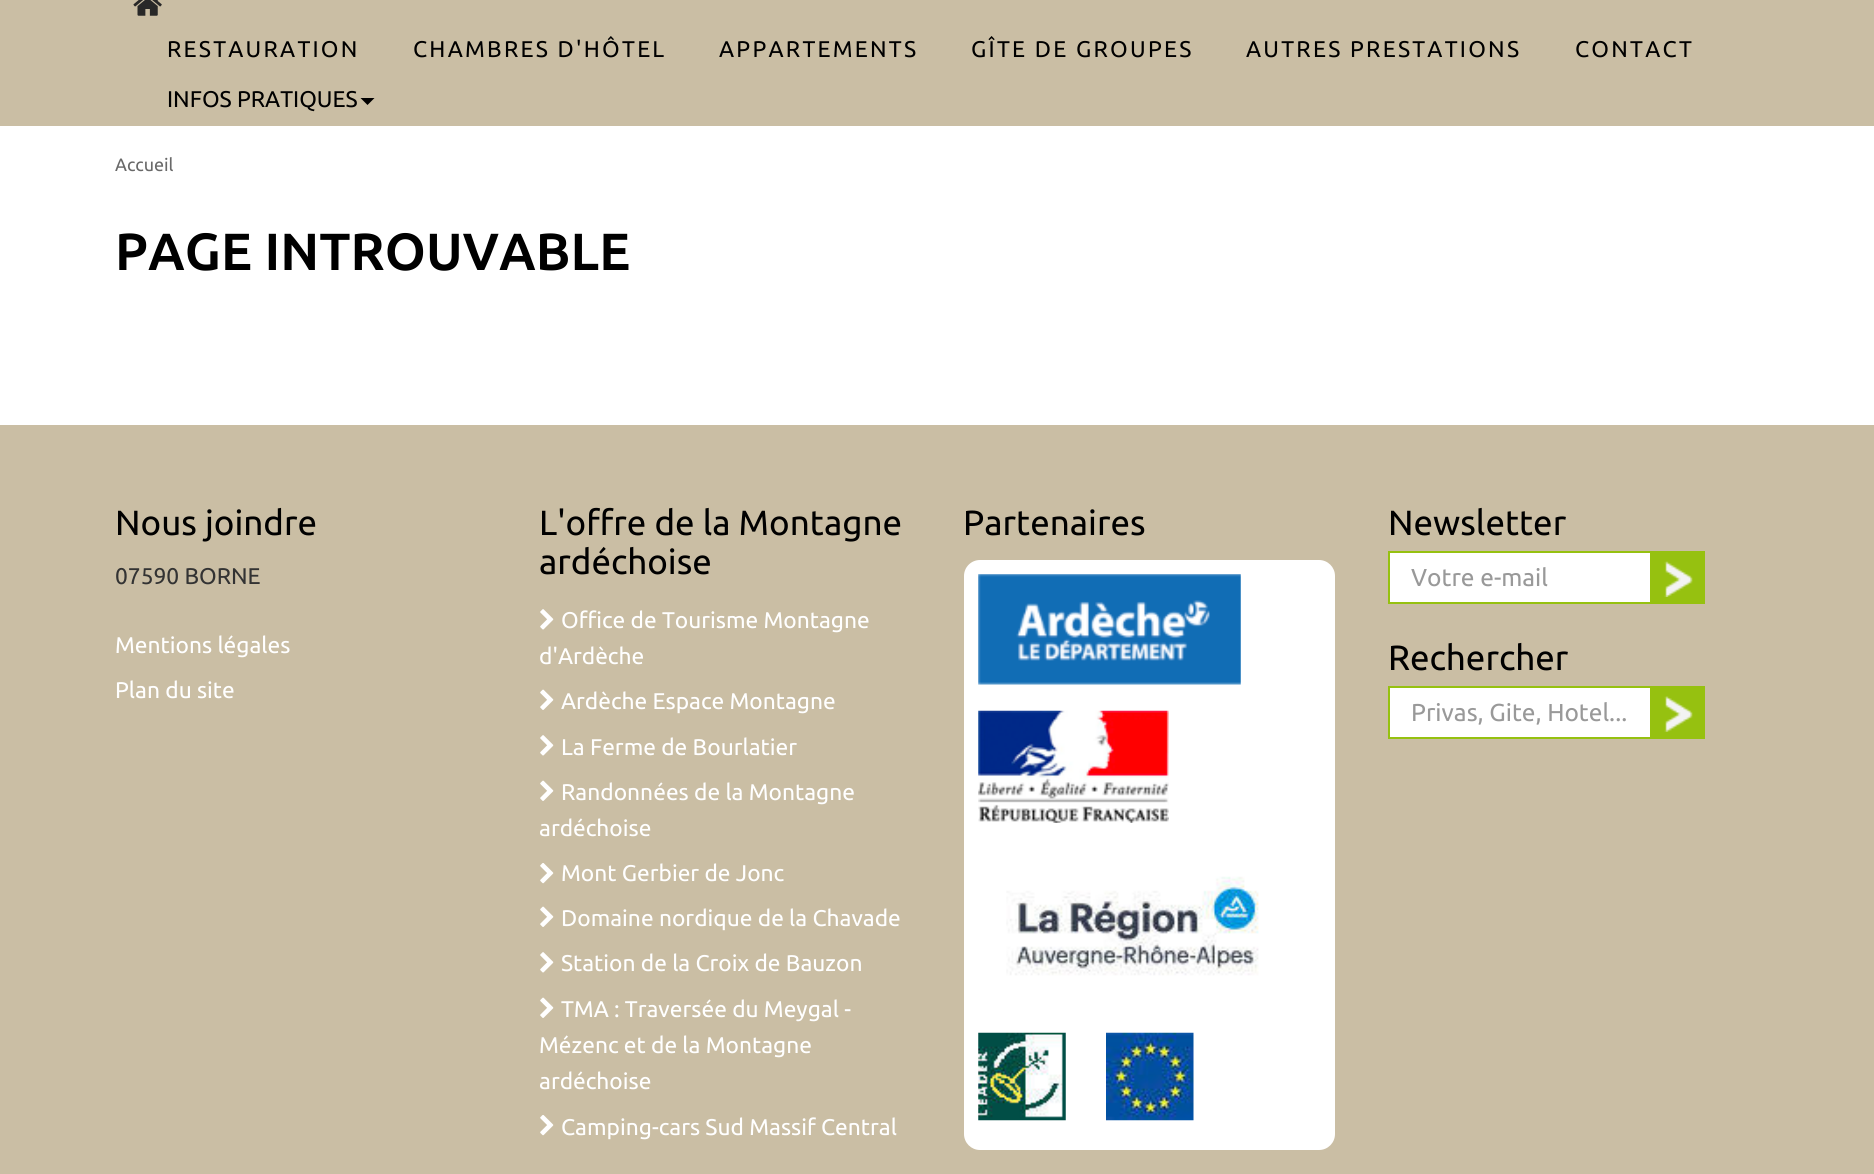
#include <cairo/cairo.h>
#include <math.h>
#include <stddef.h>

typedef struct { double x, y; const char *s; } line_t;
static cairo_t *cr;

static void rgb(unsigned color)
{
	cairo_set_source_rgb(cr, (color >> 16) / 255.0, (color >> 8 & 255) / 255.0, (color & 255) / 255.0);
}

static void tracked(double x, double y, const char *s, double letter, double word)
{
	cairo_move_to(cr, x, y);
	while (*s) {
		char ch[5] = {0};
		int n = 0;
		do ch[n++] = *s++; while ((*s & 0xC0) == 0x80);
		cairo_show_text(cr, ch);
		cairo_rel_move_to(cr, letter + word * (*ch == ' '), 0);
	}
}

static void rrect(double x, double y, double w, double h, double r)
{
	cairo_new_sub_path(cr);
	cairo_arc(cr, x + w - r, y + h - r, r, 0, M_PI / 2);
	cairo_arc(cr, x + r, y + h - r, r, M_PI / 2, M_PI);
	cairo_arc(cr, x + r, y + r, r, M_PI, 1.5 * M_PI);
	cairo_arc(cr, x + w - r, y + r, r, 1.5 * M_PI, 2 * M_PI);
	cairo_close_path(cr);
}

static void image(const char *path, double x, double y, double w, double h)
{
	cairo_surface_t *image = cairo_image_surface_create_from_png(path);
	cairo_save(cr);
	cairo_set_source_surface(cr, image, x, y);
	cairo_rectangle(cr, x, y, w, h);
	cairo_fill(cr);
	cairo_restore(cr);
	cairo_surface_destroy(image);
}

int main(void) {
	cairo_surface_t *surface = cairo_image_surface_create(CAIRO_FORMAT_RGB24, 1874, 1174);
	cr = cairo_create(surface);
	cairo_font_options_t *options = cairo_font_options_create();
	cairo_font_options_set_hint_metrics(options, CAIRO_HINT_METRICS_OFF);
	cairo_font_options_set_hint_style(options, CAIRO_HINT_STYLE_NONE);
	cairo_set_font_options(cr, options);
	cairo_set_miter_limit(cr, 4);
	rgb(0xffffff);
	cairo_paint(cr);
	rgb(0xcabea4);
	cairo_rectangle(cr, 0, 0, 1874, 126);
	cairo_fill(cr);
	image("img/1.png", 133, 0, 29, 16);
	rgb(0x000000);
	cairo_new_path(cr);
	cairo_move_to(cr, 360.5, 98);
	cairo_line_to(cr, 374.5, 98);
	cairo_line_to(cr, 367.5, 105);
	cairo_close_path(cr);
	cairo_fill(cr);
	rgb(0xcabea4);
	cairo_rectangle(cr, 0, 425, 1874, 749);
	cairo_fill(cr);
	image("img/2.png", 540, 609, 14, 21);
	image("img/3.png", 540, 689, 14, 21);
	image("img/2.png", 540, 735, 14, 21);
	image("img/3.png", 540, 780, 14, 21);
	image("img/4.png", 540, 863, 14, 21);
	image("img/3.png", 540, 906, 14, 21);
	image("img/2.png", 540, 952, 14, 21);
	image("img/3.png", 540, 997, 14, 21);
	image("img/4.png", 540, 1115, 14, 21);
	rgb(0xffffff);
	rrect(964, 560, 371, 590, 16);
	cairo_fill(cr);
	image("img/5.png", 978, 574, 263, 111);
	image("img/6.png", 978, 710, 191, 113);
	image("img/7.png", 1006, 876, 253, 100);
	image("img/8.png", 978, 1032, 88, 89);
	image("img/9.png", 1106, 1032, 88, 89);
	cairo_rectangle(cr, 1389, 552, 262, 51);
	cairo_fill_preserve(cr);
	rgb(0x96c110);
	cairo_stroke(cr);
	cairo_rectangle(cr, 1652, 551, 53, 53);
	cairo_fill(cr);
	image("img/10.png", 1664, 561, 29, 36);
	rgb(0xffffff);
	cairo_rectangle(cr, 1389, 687, 262, 51);
	cairo_fill_preserve(cr);
	rgb(0x96c110);
	cairo_stroke(cr);
	cairo_rectangle(cr, 1652, 686, 53, 53);
	cairo_fill(cr);
	image("img/11.png", 1664, 696, 29, 36);
	cairo_select_font_face(cr, "Ubuntu", CAIRO_FONT_SLANT_NORMAL, CAIRO_FONT_WEIGHT_NORMAL);
	cairo_set_font_size(cr, 22.75);
	rgb(0x000000);
	{
		static const line_t items[] = {
			{167, 57, "RESTAURATION"},
			{413, 57, "CHAMBRES D'HÔTEL"},
			{719, 57, "APPARTEMENTS"},
			{971, 57, "GÎTE DE GROUPES"},
			{1246, 57, "AUTRES PRESTATIONS"},
			{1575, 57, "CONTACT"},
		};
		for (size_t i = 0; i < sizeof items / sizeof *items; i++) {
			tracked(items[i].x, items[i].y, items[i].s, 2.25, 0);
		}
	}
	cairo_move_to(cr, 167, 107);
	cairo_show_text(cr, "INFOS PRATIQUES");
	cairo_set_font_size(cr, 18);
	rgb(0x696969);
	cairo_move_to(cr, 115, 171);
	cairo_show_text(cr, "Accueil");
	cairo_select_font_face(cr, "Ubuntu", CAIRO_FONT_SLANT_NORMAL, CAIRO_FONT_WEIGHT_BOLD);
	cairo_set_font_size(cr, 52.25);
	rgb(0x000000);
	cairo_move_to(cr, 115, 270);
	cairo_show_text(cr, "PAGE INTROUVABLE");
	cairo_select_font_face(cr, "Ubuntu", CAIRO_FONT_SLANT_NORMAL, CAIRO_FONT_WEIGHT_NORMAL);
	cairo_set_font_size(cr, 35);
	cairo_move_to(cr, 115, 535);
	cairo_show_text(cr, "Nous joindre");
	cairo_set_font_size(cr, 22.75);
	rgb(0x333333);
	cairo_move_to(cr, 115, 584);
	cairo_show_text(cr, "07590 BORNE");
	rgb(0xffffff);
	cairo_move_to(cr, 115, 653);
	cairo_show_text(cr, "Mentions légales");
	cairo_move_to(cr, 115, 698);
	cairo_show_text(cr, "Plan du site");
	cairo_set_font_size(cr, 35);
	rgb(0x000000);
	cairo_move_to(cr, 539, 535);
	cairo_show_text(cr, "L'offre de la Montagne");
	cairo_move_to(cr, 539, 574);
	cairo_show_text(cr, "ardéchoise");
	cairo_set_font_size(cr, 22.75);
	rgb(0xffffff);
	{
		static const line_t items[] = {
			{561, 628, "Office de Tourisme Montagne"},
			{539, 664, "d'Ardèche"},
			{561, 709, "Ardèche Espace Montagne"},
			{561, 755, "La Ferme de Bourlatier"},
			{561, 800, "Randonnées de la Montagne"},
			{539, 836, "ardéchoise"},
			{561, 881, "Mont Gerbier de Jonc"},
			{561, 926, "Domaine nordique de la Chavade"},
			{561, 971, "Station de la Croix de Bauzon"},
			{561, 1017, "TMA : Traversée du Meygal -"},
			{539, 1053, "Mézenc et de la Montagne"},
			{539, 1089, "ardéchoise"},
			{561, 1135, "Camping-cars Sud Massif Central"},
		};
		for (size_t i = 0; i < sizeof items / sizeof *items; i++) {
			cairo_move_to(cr, items[i].x, items[i].y);
			cairo_show_text(cr, items[i].s);
		}
	}
	cairo_set_font_size(cr, 35);
	rgb(0x000000);
	cairo_move_to(cr, 963, 535);
	cairo_show_text(cr, "Partenaires");
	cairo_move_to(cr, 1388, 535);
	cairo_show_text(cr, "Newsletter");
	cairo_set_font_size(cr, 24.5);
	rgb(0x999999);
	cairo_move_to(cr, 1411, 586);
	cairo_show_text(cr, "Votre e-mail");
	cairo_set_font_size(cr, 35);
	rgb(0x000000);
	cairo_move_to(cr, 1388, 670);
	cairo_show_text(cr, "Rechercher");
	cairo_set_font_size(cr, 24.5);
	rgb(0x999999);
	cairo_move_to(cr, 1411, 721);
	cairo_show_text(cr, "Privas, Gite, Hotel...");
	cairo_surface_write_to_png(surface, "page.png");
	cairo_font_options_destroy(options);
	cairo_destroy(cr);
	cairo_surface_destroy(surface);
	return 0;
}
